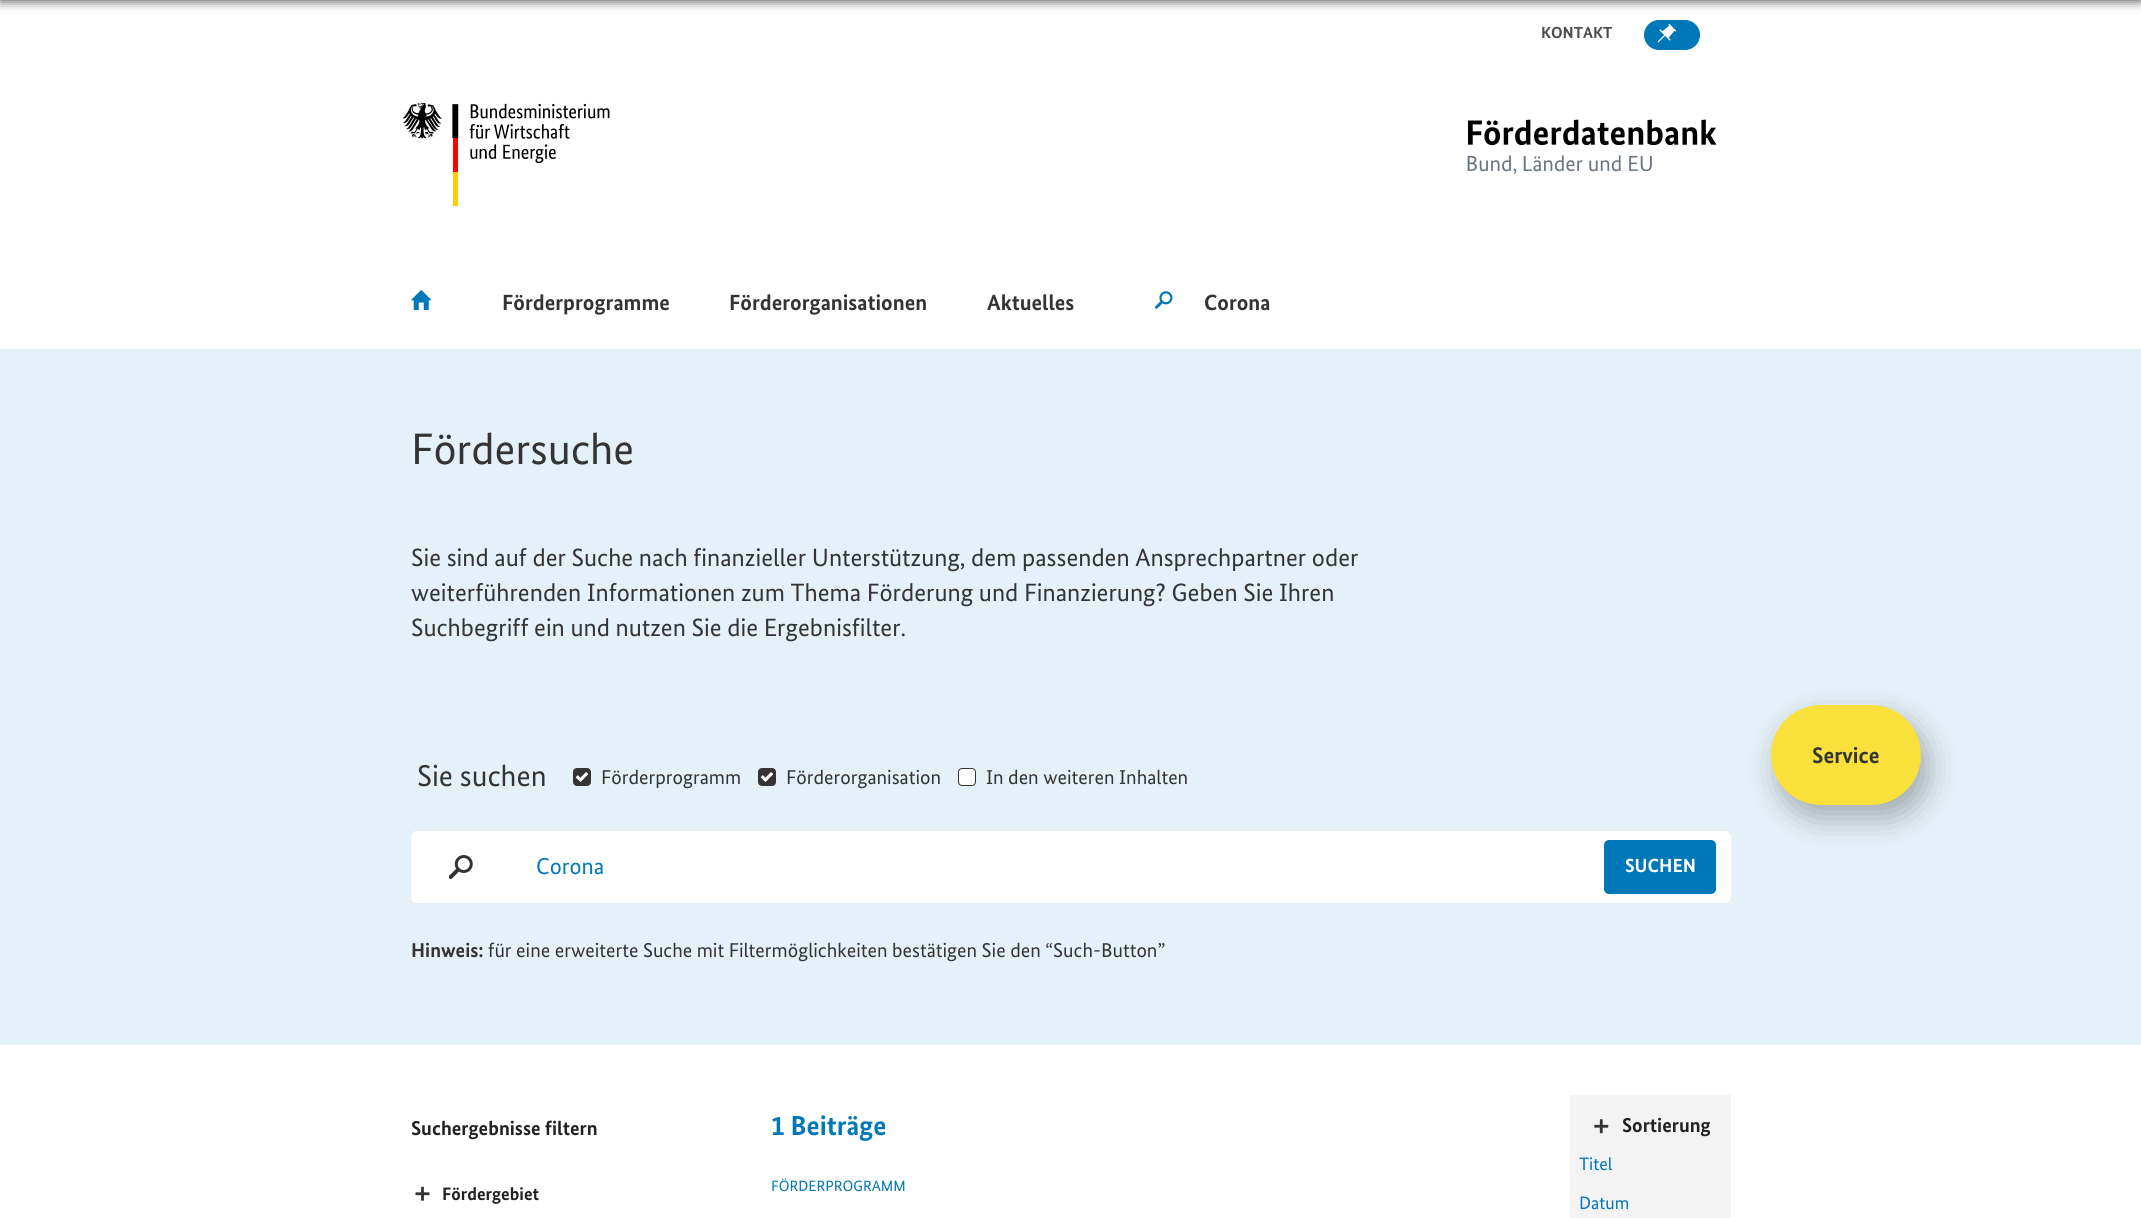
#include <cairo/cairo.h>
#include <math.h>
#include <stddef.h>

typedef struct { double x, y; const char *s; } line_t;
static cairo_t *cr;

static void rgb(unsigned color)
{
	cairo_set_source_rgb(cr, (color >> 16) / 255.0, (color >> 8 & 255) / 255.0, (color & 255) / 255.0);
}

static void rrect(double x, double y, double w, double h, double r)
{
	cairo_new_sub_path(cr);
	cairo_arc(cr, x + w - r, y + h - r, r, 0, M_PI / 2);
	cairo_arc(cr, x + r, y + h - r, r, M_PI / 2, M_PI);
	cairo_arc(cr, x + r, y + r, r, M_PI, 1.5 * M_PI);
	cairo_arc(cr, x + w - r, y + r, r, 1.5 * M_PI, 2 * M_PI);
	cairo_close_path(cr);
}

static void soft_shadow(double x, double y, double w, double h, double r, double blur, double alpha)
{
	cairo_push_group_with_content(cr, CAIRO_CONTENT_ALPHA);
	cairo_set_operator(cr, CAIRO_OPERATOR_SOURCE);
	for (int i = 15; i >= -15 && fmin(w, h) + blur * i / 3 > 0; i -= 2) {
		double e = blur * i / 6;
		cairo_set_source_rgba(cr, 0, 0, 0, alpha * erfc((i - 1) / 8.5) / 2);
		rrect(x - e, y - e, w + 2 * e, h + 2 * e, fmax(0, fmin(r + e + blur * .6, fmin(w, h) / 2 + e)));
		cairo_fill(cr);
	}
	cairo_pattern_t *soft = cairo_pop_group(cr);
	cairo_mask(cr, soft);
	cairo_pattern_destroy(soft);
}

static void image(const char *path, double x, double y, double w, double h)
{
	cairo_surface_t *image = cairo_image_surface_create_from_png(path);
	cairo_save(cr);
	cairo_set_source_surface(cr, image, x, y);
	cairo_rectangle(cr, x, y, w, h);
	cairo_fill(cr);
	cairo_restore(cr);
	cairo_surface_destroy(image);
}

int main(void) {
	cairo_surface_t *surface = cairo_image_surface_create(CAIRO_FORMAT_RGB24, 2141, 1218);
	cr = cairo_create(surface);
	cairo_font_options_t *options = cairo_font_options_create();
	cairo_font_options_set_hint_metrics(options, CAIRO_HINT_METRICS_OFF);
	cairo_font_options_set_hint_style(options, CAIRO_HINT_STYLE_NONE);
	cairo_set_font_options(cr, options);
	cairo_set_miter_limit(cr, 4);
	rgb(0xffffff);
	cairo_paint(cr);
	rgb(0x000000);
	soft_shadow(0, -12, 2141, 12, 0, 6, 0.8);
	rgb(0x0077b6);
	rrect(1644.5, 20.5, 55, 29, 14.5);
	cairo_fill_preserve(cr);
	cairo_set_line_width(cr, 1);
	cairo_stroke(cr);
	image("img/1.png", 1658, 24, 19, 19);
	image("img/2.png", 403, 103, 207, 103);
	image("img/3.png", 1467, 119, 250, 55);
	image("img/4.png", 411, 290, 20, 20);
	image("img/5.png", 1155, 291, 18, 18);
	rgb(0xe5f1f8);
	cairo_rectangle(cr, 0, 349, 2141, 696);
	cairo_fill(cr);
	rgb(0xffffff);
	rrect(411, 831, 1320, 72, 6);
	cairo_fill(cr);
	rgb(0x000000);
	soft_shadow(1778, 718, 150, 100, 50, 15.5, 0.3);
	rgb(0xf9e03a);
	rrect(1771, 705, 150, 100, 50);
	cairo_fill(cr);
	rgb(0x343434);
	rrect(573.5, 768.5, 17, 17, 3.5);
	cairo_fill_preserve(cr);
	cairo_stroke(cr);
	image("img/6.png", 576, 772, 12, 10);
	rrect(758.5, 768.5, 17, 17, 3.5);
	cairo_fill_preserve(cr);
	cairo_stroke(cr);
	image("img/6.png", 761, 772, 12, 10);
	rgb(0xffffff);
	rrect(958.5, 768.5, 17, 17, 3.5);
	cairo_fill_preserve(cr);
	rgb(0x343434);
	cairo_stroke(cr);
	image("img/7.png", 449, 855, 24, 24);
	rgb(0x0077b6);
	rrect(1604, 840, 112, 54, 5);
	cairo_fill(cr);
	image("img/8.png", 415, 1186, 15, 15);
	rgb(0xf3f3f3);
	cairo_rectangle(cr, 1570, 1095, 161, 123);
	cairo_fill(cr);
	image("img/9.png", 1594, 1119, 15, 15);
	cairo_select_font_face(cr, "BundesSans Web", CAIRO_FONT_SLANT_NORMAL, CAIRO_FONT_WEIGHT_BOLD);
	cairo_set_font_size(cr, 16);
	rgb(0x4d4d4d);
	cairo_move_to(cr, 1541, 38);
	cairo_show_text(cr, "KONTAKT");
	cairo_set_font_size(cr, 22);
	rgb(0x343434);
	{
		static const line_t items[] = {
			{502, 310, "Förderprogramme"},
			{729, 310, "Förderorganisationen"},
			{987, 310, "Aktuelles"},
			{1204, 310, "Corona"},
		};
		for (size_t i = 0; i < sizeof items / sizeof *items; i++) {
			cairo_move_to(cr, items[i].x, items[i].y);
			cairo_show_text(cr, items[i].s);
		}
	}
	cairo_select_font_face(cr, "BundesSans Web", CAIRO_FONT_SLANT_NORMAL, CAIRO_FONT_WEIGHT_NORMAL);
	cairo_set_font_size(cr, 44);
	cairo_move_to(cr, 411, 464);
	cairo_show_text(cr, "Fördersuche");
	cairo_set_font_size(cr, 25);
	{
		static const line_t items[] = {
			{411, 566, "Sie sind auf der Suche nach finanzieller Unterstützung, dem passenden Ansprechpartner oder"},
			{411, 601, "weiterführenden Informationen zum Thema Förderung und Finanzierung? Geben Sie Ihren"},
			{411, 636, "Suchbegriff ein und nutzen Sie die Ergebnisfilter."},
		};
		for (size_t i = 0; i < sizeof items / sizeof *items; i++) {
			cairo_move_to(cr, items[i].x, items[i].y);
			cairo_show_text(cr, items[i].s);
		}
	}
	cairo_select_font_face(cr, "BundesSans Web", CAIRO_FONT_SLANT_NORMAL, CAIRO_FONT_WEIGHT_BOLD);
	cairo_set_font_size(cr, 22.5);
	cairo_move_to(cr, 1812, 763);
	cairo_show_text(cr, "Service");
	cairo_select_font_face(cr, "BundesSans Web", CAIRO_FONT_SLANT_NORMAL, CAIRO_FONT_WEIGHT_NORMAL);
	cairo_set_font_size(cr, 30);
	cairo_move_to(cr, 417, 786);
	cairo_show_text(cr, "Sie suchen");
	cairo_set_font_size(cr, 20);
	{
		static const line_t items[] = {
			{601, 784, "Förderprogramm"},
			{786, 784, "Förderorganisation"},
			{986, 784, "In den weiteren Inhalten"},
		};
		for (size_t i = 0; i < sizeof items / sizeof *items; i++) {
			cairo_move_to(cr, items[i].x, items[i].y);
			cairo_show_text(cr, items[i].s);
		}
	}
	cairo_set_font_size(cr, 23);
	rgb(0x0077b6);
	cairo_move_to(cr, 536, 874);
	cairo_show_text(cr, "Corona");
	cairo_select_font_face(cr, "BundesSans Web", CAIRO_FONT_SLANT_NORMAL, CAIRO_FONT_WEIGHT_BOLD);
	cairo_set_font_size(cr, 19);
	rgb(0xffffff);
	cairo_move_to(cr, 1625, 872);
	cairo_show_text(cr, "SUCHEN");
	cairo_set_font_size(cr, 20);
	rgb(0x343434);
	cairo_move_to(cr, 411, 957);
	cairo_show_text(cr, "Hinweis:");
	cairo_select_font_face(cr, "BundesSans Web", CAIRO_FONT_SLANT_NORMAL, CAIRO_FONT_WEIGHT_NORMAL);
	cairo_move_to(cr, 488, 957);
	cairo_show_text(cr, "für eine erweiterte Suche mit Filtermöglichkeiten bestätigen Sie den “Such-Button”");
	cairo_select_font_face(cr, "BundesSans Web", CAIRO_FONT_SLANT_NORMAL, CAIRO_FONT_WEIGHT_BOLD);
	rgb(0x222222);
	cairo_move_to(cr, 411, 1135);
	cairo_show_text(cr, "Suchergebnisse filtern");
	cairo_set_font_size(cr, 18);
	cairo_move_to(cr, 442, 1200);
	cairo_show_text(cr, "Fördergebiet");
	cairo_set_font_size(cr, 27.5);
	rgb(0x0077b6);
	cairo_move_to(cr, 771, 1135);
	cairo_show_text(cr, "1 Beiträge");
	cairo_select_font_face(cr, "BundesSans Web", CAIRO_FONT_SLANT_NORMAL, CAIRO_FONT_WEIGHT_NORMAL);
	cairo_set_font_size(cr, 15);
	cairo_move_to(cr, 771, 1191);
	cairo_show_text(cr, "FÖRDERPROGRAMM");
	cairo_select_font_face(cr, "BundesSans Web", CAIRO_FONT_SLANT_NORMAL, CAIRO_FONT_WEIGHT_BOLD);
	cairo_set_font_size(cr, 20);
	rgb(0x222222);
	cairo_move_to(cr, 1622, 1132);
	cairo_show_text(cr, "Sortierung");
	cairo_select_font_face(cr, "BundesSans Web", CAIRO_FONT_SLANT_NORMAL, CAIRO_FONT_WEIGHT_NORMAL);
	cairo_set_font_size(cr, 18);
	rgb(0x0077b6);
	cairo_move_to(cr, 1579, 1170);
	cairo_show_text(cr, "Titel");
	cairo_move_to(cr, 1579, 1209);
	cairo_show_text(cr, "Datum");
	cairo_surface_write_to_png(surface, "page.png");
	cairo_font_options_destroy(options);
	cairo_destroy(cr);
	cairo_surface_destroy(surface);
	return 0;
}
